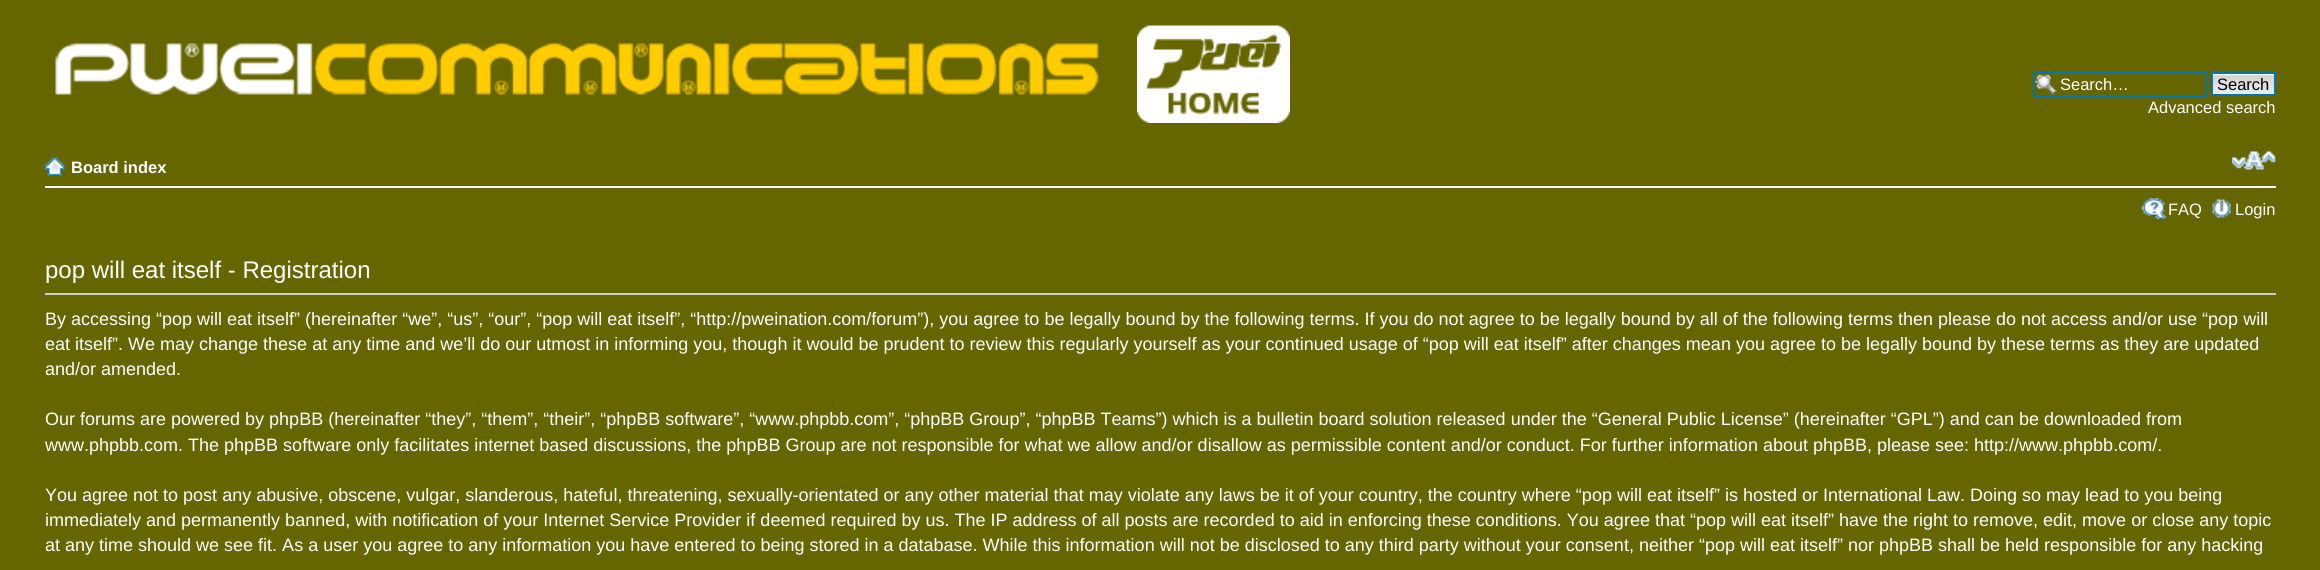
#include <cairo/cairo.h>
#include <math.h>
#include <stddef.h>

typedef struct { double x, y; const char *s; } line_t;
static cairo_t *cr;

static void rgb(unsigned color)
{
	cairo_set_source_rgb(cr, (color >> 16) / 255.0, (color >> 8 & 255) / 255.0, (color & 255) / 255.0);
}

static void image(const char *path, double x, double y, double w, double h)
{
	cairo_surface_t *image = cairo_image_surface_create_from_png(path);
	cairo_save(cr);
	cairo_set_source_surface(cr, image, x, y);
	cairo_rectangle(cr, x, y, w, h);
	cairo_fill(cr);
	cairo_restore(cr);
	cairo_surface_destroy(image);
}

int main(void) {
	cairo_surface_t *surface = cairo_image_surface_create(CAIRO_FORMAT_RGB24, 2320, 570);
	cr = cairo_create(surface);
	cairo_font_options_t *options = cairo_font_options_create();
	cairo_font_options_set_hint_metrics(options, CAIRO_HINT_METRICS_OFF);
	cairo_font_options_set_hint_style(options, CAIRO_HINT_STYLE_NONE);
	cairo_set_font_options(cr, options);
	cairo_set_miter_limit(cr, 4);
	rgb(0x656600);
	cairo_paint(cr);
	image("img/1.png", 55, 43, 1044, 52);
	image("img/2.png", 1137, 25, 153, 98);
	image("img/3.png", 2035, 74, 22, 21);
	cairo_rectangle(cr, 2034, 72, 172, 25);
	rgb(0x0075b0);
	cairo_stroke(cr);
	rgb(0xfafafa);
	cairo_rectangle(cr, 2213, 74, 61, 1);
	cairo_fill(cr);
	image("img/4.png", 2213, 75, 61, 19);
	cairo_rectangle(cr, 2212, 73, 63, 22);
	rgb(0x0075b0);
	cairo_stroke(cr);
	rgb(0xffffff);
	cairo_rectangle(cr, 45, 186, 2231, 2);
	cairo_fill(cr);
	image("img/5.png", 45, 157, 20, 19);
	image("img/6.png", 2232, 151, 44, 19);
	image("img/7.png", 2142, 198, 24, 21);
	image("img/8.png", 2212, 199, 19, 19);
	rgb(0xcccccc);
	cairo_rectangle(cr, 45, 293, 2231, 2);
	cairo_fill(cr);
	cairo_select_font_face(cr, "Liberation Sans", CAIRO_FONT_SLANT_NORMAL, CAIRO_FONT_WEIGHT_NORMAL);
	cairo_set_font_size(cr, 16.5);
	rgb(0xffffff);
	cairo_move_to(cr, 2060, 90);
	cairo_show_text(cr, "Search…");
	rgb(0x000000);
	cairo_move_to(cr, 2217, 90);
	cairo_show_text(cr, "Search");
	rgb(0xffffff);
	cairo_move_to(cr, 2148, 113);
	cairo_show_text(cr, "Advanced search");
	cairo_select_font_face(cr, "Liberation Sans", CAIRO_FONT_SLANT_NORMAL, CAIRO_FONT_WEIGHT_BOLD);
	cairo_move_to(cr, 71, 173);
	cairo_show_text(cr, "Board index");
	cairo_select_font_face(cr, "Liberation Sans", CAIRO_FONT_SLANT_NORMAL, CAIRO_FONT_WEIGHT_NORMAL);
	cairo_move_to(cr, 2168, 215);
	cairo_show_text(cr, "FAQ");
	cairo_move_to(cr, 2235, 215);
	cairo_show_text(cr, "Login");
	cairo_set_font_size(cr, 24);
	cairo_move_to(cr, 45, 278);
	cairo_show_text(cr, "pop will eat itself - Registration");
	cairo_set_font_size(cr, 18);
	{
		static const line_t items[] = {
			{45, 325, "By accessing “pop will eat itself” (hereinafter “we”, “us”, “our”, “pop will eat itself”, “http://pweination.com/forum”), you agree to be legally bound by the following terms. If you do not agree to be legally bound by all of the following terms then please do not access and/or use “pop will"},
			{45, 350, "eat itself”. We may change these at any time and we’ll do our utmost in informing you, though it would be prudent to review this regularly yourself as your continued usage of “pop will eat itself” after changes mean you agree to be legally bound by these terms as they are updated"},
			{45, 375, "and/or amended."},
			{45, 425, "Our forums are powered by phpBB (hereinafter “they”, “them”, “their”, “phpBB software”, “www.phpbb.com”, “phpBB Group”, “phpBB Teams”) which is a bulletin board solution released under the “General Public License” (hereinafter “GPL”) and can be downloaded from"},
			{45, 451, "www.phpbb.com. The phpBB software only facilitates internet based discussions, the phpBB Group are not responsible for what we allow and/or disallow as permissible content and/or conduct. For further information about phpBB, please see: http://www.phpbb.com/."},
			{45, 501, "You agree not to post any abusive, obscene, vulgar, slanderous, hateful, threatening, sexually-orientated or any other material that may violate any laws be it of your country, the country where “pop will eat itself” is hosted or International Law. Doing so may lead to you being"},
			{45, 526, "immediately and permanently banned, with notification of your Internet Service Provider if deemed required by us. The IP address of all posts are recorded to aid in enforcing these conditions. You agree that “pop will eat itself” have the right to remove, edit, move or close any topic"},
			{45, 551, "at any time should we see fit. As a user you agree to any information you have entered to being stored in a database. While this information will not be disclosed to any third party without your consent, neither “pop will eat itself” nor phpBB shall be held responsible for any hacking"},
		};
		for (size_t i = 0; i < sizeof items / sizeof *items; i++) {
			cairo_move_to(cr, items[i].x, items[i].y);
			cairo_show_text(cr, items[i].s);
		}
	}
	cairo_surface_write_to_png(surface, "page.png");
	cairo_font_options_destroy(options);
	cairo_destroy(cr);
	cairo_surface_destroy(surface);
	return 0;
}
